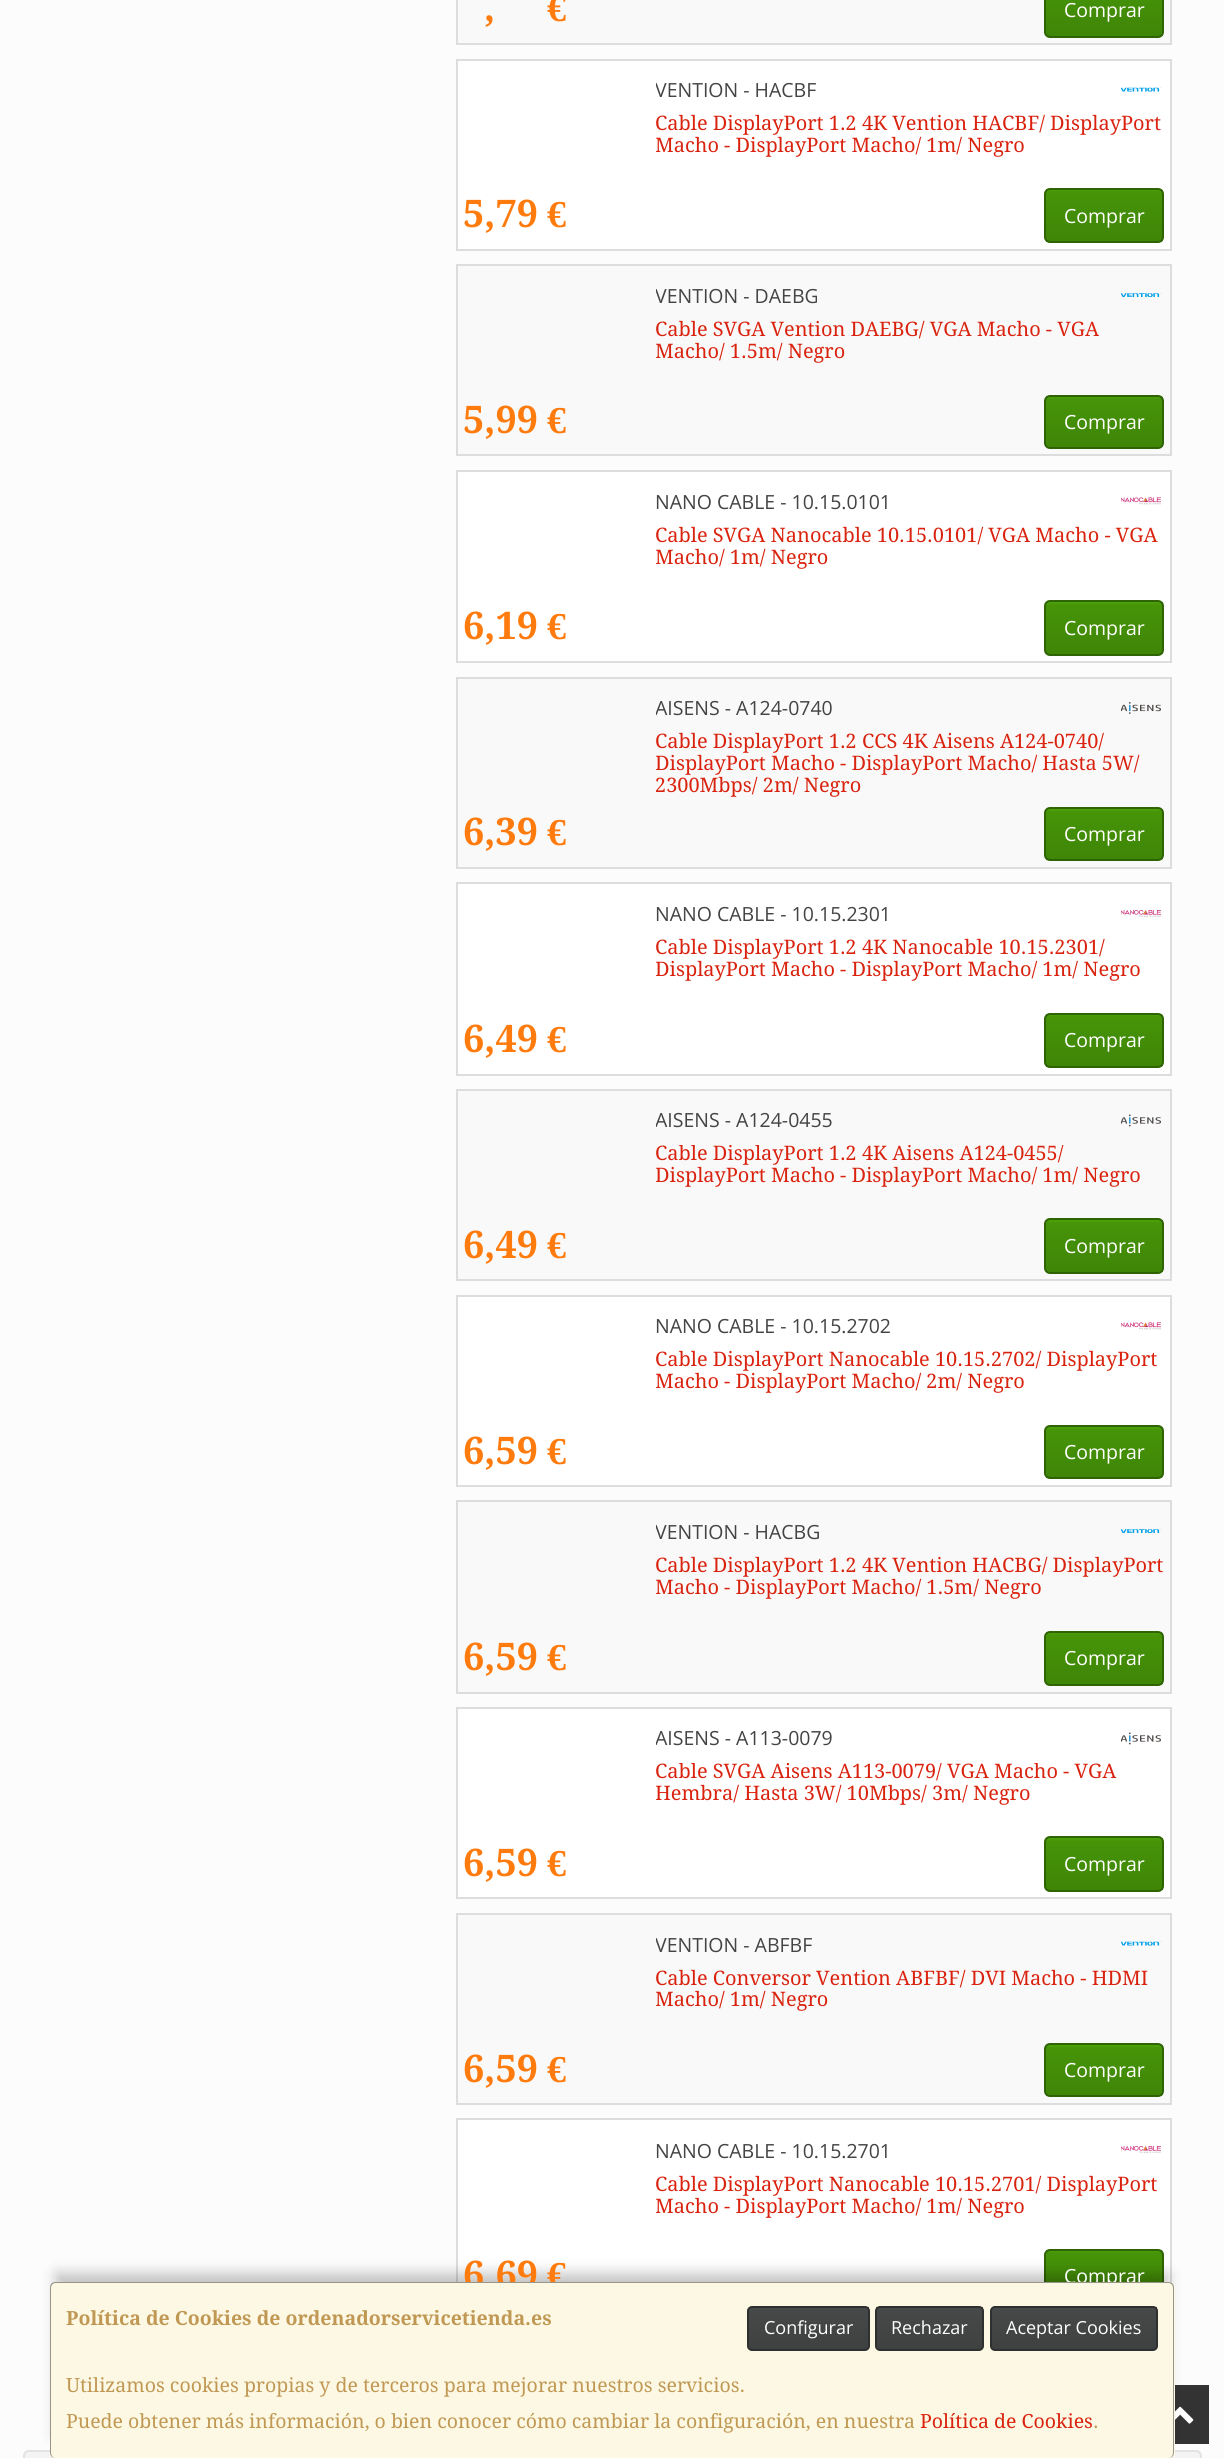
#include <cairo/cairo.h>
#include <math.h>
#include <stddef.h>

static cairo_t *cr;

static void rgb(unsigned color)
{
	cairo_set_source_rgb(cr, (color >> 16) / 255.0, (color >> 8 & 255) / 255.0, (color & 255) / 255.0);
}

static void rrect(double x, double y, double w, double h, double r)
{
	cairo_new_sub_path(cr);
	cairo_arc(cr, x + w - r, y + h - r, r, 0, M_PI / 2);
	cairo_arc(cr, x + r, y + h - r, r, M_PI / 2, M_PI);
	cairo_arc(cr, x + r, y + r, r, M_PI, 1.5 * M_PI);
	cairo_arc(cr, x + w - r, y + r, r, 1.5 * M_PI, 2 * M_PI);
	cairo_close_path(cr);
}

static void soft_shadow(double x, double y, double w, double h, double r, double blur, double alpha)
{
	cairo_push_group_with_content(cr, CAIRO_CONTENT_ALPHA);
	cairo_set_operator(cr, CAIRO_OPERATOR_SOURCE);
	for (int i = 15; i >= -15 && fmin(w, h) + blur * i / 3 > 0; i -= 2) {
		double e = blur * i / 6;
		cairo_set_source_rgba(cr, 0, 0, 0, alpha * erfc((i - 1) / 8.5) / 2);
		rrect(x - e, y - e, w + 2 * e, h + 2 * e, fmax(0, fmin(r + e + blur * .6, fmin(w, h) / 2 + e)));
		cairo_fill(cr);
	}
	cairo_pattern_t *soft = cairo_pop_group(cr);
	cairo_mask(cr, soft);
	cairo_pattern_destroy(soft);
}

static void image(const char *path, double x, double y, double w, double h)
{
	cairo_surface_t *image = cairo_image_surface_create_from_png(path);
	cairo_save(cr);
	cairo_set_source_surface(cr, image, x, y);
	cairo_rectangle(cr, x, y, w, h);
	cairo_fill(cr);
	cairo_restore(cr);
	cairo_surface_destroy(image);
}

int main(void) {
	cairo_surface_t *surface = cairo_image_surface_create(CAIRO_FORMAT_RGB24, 1224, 2458);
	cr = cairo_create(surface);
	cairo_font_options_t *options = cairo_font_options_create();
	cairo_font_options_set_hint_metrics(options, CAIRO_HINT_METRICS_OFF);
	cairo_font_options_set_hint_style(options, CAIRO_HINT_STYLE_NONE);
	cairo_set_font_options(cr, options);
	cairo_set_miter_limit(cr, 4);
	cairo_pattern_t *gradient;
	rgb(0xfcfcfc);
	cairo_paint(cr);
	rgb(0xf9f9f9);
	cairo_rectangle(cr, 457, -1, 714, 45);
	cairo_fill_preserve(cr);
	rgb(0xdddddd);
	cairo_stroke(cr);
	gradient = cairo_pattern_create_linear(1104, -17, 1104, 36);
	cairo_pattern_add_color_stop_rgba(gradient, 0, 0.302, 0.639, 0.035, 1);
	cairo_pattern_add_color_stop_rgba(gradient, 0.06, 0.275, 0.58, 0.031, 1);
	cairo_pattern_add_color_stop_rgba(gradient, 1, 0.247, 0.522, 0.027, 1);
	cairo_set_source(cr, gradient);
	cairo_pattern_destroy(gradient);
	cairo_rectangle(cr, 1046, 0, 117, 36);
	cairo_fill(cr);
	rrect(1045, -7, 118, 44, 5);
	rgb(0x2f6405);
	cairo_stroke(cr);
	rgb(0xffffff);
	cairo_rectangle(cr, 457, 60, 714, 190);
	cairo_fill_preserve(cr);
	rgb(0xdddddd);
	cairo_stroke(cr);
	cairo_save(cr);
	rrect(1044, 188, 120, 55, 6);
	cairo_clip(cr);
	gradient = cairo_pattern_create_linear(1104, 189, 1104, 242);
	cairo_pattern_add_color_stop_rgba(gradient, 0, 0.302, 0.639, 0.035, 1);
	cairo_pattern_add_color_stop_rgba(gradient, 0.06, 0.275, 0.58, 0.031, 1);
	cairo_pattern_add_color_stop_rgba(gradient, 1, 0.247, 0.522, 0.027, 1);
	cairo_set_source(cr, gradient);
	cairo_pattern_destroy(gradient);
	cairo_rectangle(cr, 1046, 189, 117, 53);
	cairo_fill(cr);
	cairo_restore(cr);
	rrect(1045, 189, 118, 53, 5);
	rgb(0x2f6405);
	cairo_stroke(cr);
	image("img/1.png", 1121, 87, 40, 5);
	rgb(0xf9f9f9);
	cairo_rectangle(cr, 457, 265, 714, 190);
	cairo_fill_preserve(cr);
	rgb(0xdddddd);
	cairo_stroke(cr);
	cairo_save(cr);
	rrect(1044, 395, 120, 54, 6);
	cairo_clip(cr);
	gradient = cairo_pattern_create_linear(1104, 396, 1104, 447);
	cairo_pattern_add_color_stop_rgba(gradient, 0, 0.302, 0.639, 0.035, 1);
	cairo_pattern_add_color_stop_rgba(gradient, 0.06, 0.275, 0.58, 0.031, 1);
	cairo_pattern_add_color_stop_rgba(gradient, 1, 0.247, 0.522, 0.027, 1);
	cairo_set_source(cr, gradient);
	cairo_pattern_destroy(gradient);
	cairo_rectangle(cr, 1046, 396, 117, 51);
	cairo_fill(cr);
	cairo_restore(cr);
	rrect(1045, 396, 118, 52, 5);
	rgb(0x2f6405);
	cairo_stroke(cr);
	image("img/2.png", 1121, 293, 40, 4);
	rgb(0xffffff);
	cairo_rectangle(cr, 457, 471, 714, 191);
	cairo_fill_preserve(cr);
	rgb(0xdddddd);
	cairo_stroke(cr);
	gradient = cairo_pattern_create_linear(1104, 602, 1104, 654);
	cairo_pattern_add_color_stop_rgba(gradient, 0, 0.302, 0.639, 0.035, 1);
	cairo_pattern_add_color_stop_rgba(gradient, 0.06, 0.275, 0.58, 0.031, 1);
	cairo_pattern_add_color_stop_rgba(gradient, 1, 0.247, 0.522, 0.027, 1);
	cairo_set_source(cr, gradient);
	cairo_pattern_destroy(gradient);
	cairo_rectangle(cr, 1046, 602, 117, 52);
	cairo_fill(cr);
	rrect(1045, 601, 118, 54, 5);
	rgb(0x2f6405);
	cairo_stroke(cr);
	image("img/3.png", 1121, 497, 40, 8);
	rgb(0xf9f9f9);
	cairo_rectangle(cr, 457, 678, 714, 190);
	cairo_fill_preserve(cr);
	rgb(0xdddddd);
	cairo_stroke(cr);
	cairo_save(cr);
	rrect(1044, 807, 120, 54, 6);
	cairo_clip(cr);
	gradient = cairo_pattern_create_linear(1104, 809, 1104, 860);
	cairo_pattern_add_color_stop_rgba(gradient, 0, 0.302, 0.639, 0.035, 1);
	cairo_pattern_add_color_stop_rgba(gradient, 0.06, 0.275, 0.58, 0.031, 1);
	cairo_pattern_add_color_stop_rgba(gradient, 1, 0.247, 0.522, 0.027, 1);
	cairo_set_source(cr, gradient);
	cairo_pattern_destroy(gradient);
	cairo_rectangle(cr, 1046, 809, 117, 51);
	cairo_fill(cr);
	cairo_restore(cr);
	rrect(1045, 808, 118, 52, 5);
	rgb(0x2f6405);
	cairo_stroke(cr);
	image("img/4.png", 1121, 702, 40, 12);
	rgb(0xffffff);
	cairo_rectangle(cr, 457, 883, 714, 192);
	cairo_fill_preserve(cr);
	rgb(0xdddddd);
	cairo_stroke(cr);
	cairo_save(cr);
	rrect(1044, 1013, 120, 55, 6);
	cairo_clip(cr);
	gradient = cairo_pattern_create_linear(1104, 1014, 1104, 1067);
	cairo_pattern_add_color_stop_rgba(gradient, 0, 0.302, 0.639, 0.035, 1);
	cairo_pattern_add_color_stop_rgba(gradient, 0.06, 0.275, 0.58, 0.031, 1);
	cairo_pattern_add_color_stop_rgba(gradient, 1, 0.247, 0.522, 0.027, 1);
	cairo_set_source(cr, gradient);
	cairo_pattern_destroy(gradient);
	cairo_rectangle(cr, 1046, 1014, 117, 53);
	cairo_fill(cr);
	cairo_restore(cr);
	rrect(1045, 1014, 118, 53, 5);
	rgb(0x2f6405);
	cairo_stroke(cr);
	image("img/5.png", 1121, 909, 40, 8);
	rgb(0xf9f9f9);
	cairo_rectangle(cr, 457, 1090, 714, 190);
	cairo_fill_preserve(cr);
	rgb(0xdddddd);
	cairo_stroke(cr);
	gradient = cairo_pattern_create_linear(1104, 1220, 1104, 1272);
	cairo_pattern_add_color_stop_rgba(gradient, 0, 0.302, 0.639, 0.035, 1);
	cairo_pattern_add_color_stop_rgba(gradient, 0.06, 0.275, 0.58, 0.031, 1);
	cairo_pattern_add_color_stop_rgba(gradient, 1, 0.247, 0.522, 0.027, 1);
	cairo_set_source(cr, gradient);
	cairo_pattern_destroy(gradient);
	cairo_rectangle(cr, 1046, 1220, 117, 52);
	cairo_fill(cr);
	rrect(1045, 1219, 118, 54, 5);
	rgb(0x2f6405);
	cairo_stroke(cr);
	image("img/6.png", 1121, 1114, 40, 13);
	rgb(0xffffff);
	cairo_rectangle(cr, 457, 1296, 714, 190);
	cairo_fill_preserve(cr);
	rgb(0xdddddd);
	cairo_stroke(cr);
	cairo_save(cr);
	rrect(1044, 1425, 120, 54, 6);
	cairo_clip(cr);
	gradient = cairo_pattern_create_linear(1104, 1427, 1104, 1478);
	cairo_pattern_add_color_stop_rgba(gradient, 0, 0.302, 0.639, 0.035, 1);
	cairo_pattern_add_color_stop_rgba(gradient, 0.06, 0.275, 0.58, 0.031, 1);
	cairo_pattern_add_color_stop_rgba(gradient, 1, 0.247, 0.522, 0.027, 1);
	cairo_set_source(cr, gradient);
	cairo_pattern_destroy(gradient);
	cairo_rectangle(cr, 1046, 1427, 117, 51);
	cairo_fill(cr);
	cairo_restore(cr);
	rrect(1045, 1426, 118, 52, 5);
	rgb(0x2f6405);
	cairo_stroke(cr);
	image("img/3.png", 1121, 1322, 40, 8);
	rgb(0xf9f9f9);
	cairo_rectangle(cr, 457, 1501, 714, 192);
	cairo_fill_preserve(cr);
	rgb(0xdddddd);
	cairo_stroke(cr);
	cairo_save(cr);
	rrect(1044, 1631, 120, 55, 6);
	cairo_clip(cr);
	gradient = cairo_pattern_create_linear(1104, 1632, 1104, 1685);
	cairo_pattern_add_color_stop_rgba(gradient, 0, 0.302, 0.639, 0.035, 1);
	cairo_pattern_add_color_stop_rgba(gradient, 0.06, 0.275, 0.58, 0.031, 1);
	cairo_pattern_add_color_stop_rgba(gradient, 1, 0.247, 0.522, 0.027, 1);
	cairo_set_source(cr, gradient);
	cairo_pattern_destroy(gradient);
	cairo_rectangle(cr, 1046, 1632, 117, 53);
	cairo_fill(cr);
	cairo_restore(cr);
	rrect(1045, 1632, 118, 53, 5);
	rgb(0x2f6405);
	cairo_stroke(cr);
	image("img/2.png", 1121, 1529, 40, 4);
	rgb(0xffffff);
	cairo_rectangle(cr, 457, 1708, 714, 190);
	cairo_fill_preserve(cr);
	rgb(0xdddddd);
	cairo_stroke(cr);
	gradient = cairo_pattern_create_linear(1104, 1838, 1104, 1890);
	cairo_pattern_add_color_stop_rgba(gradient, 0, 0.302, 0.639, 0.035, 1);
	cairo_pattern_add_color_stop_rgba(gradient, 0.06, 0.275, 0.58, 0.031, 1);
	cairo_pattern_add_color_stop_rgba(gradient, 1, 0.247, 0.522, 0.027, 1);
	cairo_set_source(cr, gradient);
	cairo_pattern_destroy(gradient);
	cairo_rectangle(cr, 1046, 1838, 117, 52);
	cairo_fill(cr);
	rrect(1045, 1837, 118, 54, 5);
	rgb(0x2f6405);
	cairo_stroke(cr);
	image("img/7.png", 1121, 1732, 40, 13);
	rgb(0xf9f9f9);
	cairo_rectangle(cr, 457, 1914, 714, 190);
	cairo_fill_preserve(cr);
	rgb(0xdddddd);
	cairo_stroke(cr);
	cairo_save(cr);
	rrect(1044, 2043, 120, 54, 6);
	cairo_clip(cr);
	gradient = cairo_pattern_create_linear(1104, 2045, 1104, 2096);
	cairo_pattern_add_color_stop_rgba(gradient, 0, 0.302, 0.639, 0.035, 1);
	cairo_pattern_add_color_stop_rgba(gradient, 0.06, 0.275, 0.58, 0.031, 1);
	cairo_pattern_add_color_stop_rgba(gradient, 1, 0.247, 0.522, 0.027, 1);
	cairo_set_source(cr, gradient);
	cairo_pattern_destroy(gradient);
	cairo_rectangle(cr, 1046, 2045, 117, 51);
	cairo_fill(cr);
	cairo_restore(cr);
	rrect(1045, 2044, 118, 52, 5);
	rgb(0x2f6405);
	cairo_stroke(cr);
	image("img/8.png", 1121, 1941, 40, 5);
	rgb(0xffffff);
	cairo_rectangle(cr, 458, 2120, 712, 163);
	cairo_fill(cr);
	cairo_rectangle(cr, 457, 2119, 714, 192);
	rgb(0xdddddd);
	cairo_stroke(cr);
	cairo_save(cr);
	rrect(1044, 2249, 120, 55, 6);
	cairo_clip(cr);
	gradient = cairo_pattern_create_linear(1104, 2250, 1104, 2303);
	cairo_pattern_add_color_stop_rgba(gradient, 0, 0.302, 0.639, 0.035, 1);
	cairo_pattern_add_color_stop_rgba(gradient, 0.06, 0.275, 0.58, 0.031, 1);
	cairo_pattern_add_color_stop_rgba(gradient, 1, 0.247, 0.522, 0.027, 1);
	cairo_set_source(cr, gradient);
	cairo_pattern_destroy(gradient);
	cairo_rectangle(cr, 1046, 2250, 117, 32);
	cairo_fill(cr);
	cairo_restore(cr);
	rrect(1045, 2250, 118, 53, 5);
	rgb(0x2f6405);
	cairo_stroke(cr);
	image("img/5.png", 1121, 2145, 40, 8);
	rgb(0xf4f4f4);
	rrect(23, 2450, 1179, 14, 6);
	cairo_fill(cr);
	rgb(0xe8e8e8);
	cairo_new_path(cr);
	cairo_move_to(cr, 28, 2452);
	cairo_line_to(cr, 1196, 2452);
	cairo_curve_to(cr, 1198, 2452, 1200, 2455, 1200, 2457);
	cairo_curve_to(cr, 1200, 2454, 1198, 2451, 1195, 2451);
	cairo_line_to(cr, 29, 2451);
	cairo_curve_to(cr, 26, 2451, 24, 2454, 24, 2457);
	cairo_curve_to(cr, 24, 2455, 26, 2452, 28, 2452);
	cairo_close_path(cr);
	cairo_fill(cr);
	rrect(24, 2451, 1177, 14, 5);
	rgb(0xe3e3e3);
	cairo_stroke(cr);
	rgb(0x333333);
	cairo_rectangle(cr, 1175, 2385, 34, 59);
	cairo_fill(cr);
	image("img/9.png", 1175, 2406, 19, 18);
	rgb(0x000000);
	soft_shadow(57, 2274, 1110, 162, 0, 7.5, 0.25);
	cairo_select_font_face(cr, "Droid Serif", CAIRO_FONT_SLANT_NORMAL, CAIRO_FONT_WEIGHT_BOLD);
	cairo_set_font_size(cr, 38);
	rgb(0xff7b0d);
	cairo_move_to(cr, 484, 21);
	cairo_show_text(cr, ",");
	cairo_select_font_face(cr, "Liberation Serif", CAIRO_FONT_SLANT_NORMAL, CAIRO_FONT_WEIGHT_BOLD);
	cairo_move_to(cr, 547, 21);
	cairo_show_text(cr, "€");
	cairo_select_font_face(cr, "Open Sans", CAIRO_FONT_SLANT_NORMAL, CAIRO_FONT_WEIGHT_NORMAL);
	cairo_set_font_size(cr, 19.5);
	rgb(0xffffff);
	cairo_move_to(cr, 1064, 17);
	cairo_show_text(cr, "Comprar");
	cairo_save(cr);
	cairo_rectangle(cr, 656, 66, 508, 48);
	cairo_clip(cr);
	rgb(0x444444);
	cairo_move_to(cr, 655, 97);
	cairo_show_text(cr, "VENTION - HACBF");
	cairo_restore(cr);
	cairo_select_font_face(cr, "Droid Serif", CAIRO_FONT_SLANT_NORMAL, CAIRO_FONT_WEIGHT_NORMAL);
	cairo_set_font_size(cr, 19.95);
	rgb(0xd9230f);
	cairo_move_to(cr, 655, 130);
	cairo_show_text(cr, "Cable DisplayPort 1.2 4K Vention HACBF/ DisplayPort");
	cairo_save(cr);
	cairo_rectangle(cr, 656, 114, 508, 66);
	cairo_clip(cr);
	cairo_move_to(cr, 655, 152);
	cairo_show_text(cr, "Macho - DisplayPort Macho/ 1m/ Negro");
	cairo_restore(cr);
	cairo_select_font_face(cr, "Droid Serif", CAIRO_FONT_SLANT_NORMAL, CAIRO_FONT_WEIGHT_BOLD);
	cairo_set_font_size(cr, 38);
	rgb(0xff7b0d);
	cairo_move_to(cr, 463, 227);
	cairo_show_text(cr, "5,79");
	cairo_select_font_face(cr, "Liberation Serif", CAIRO_FONT_SLANT_NORMAL, CAIRO_FONT_WEIGHT_BOLD);
	cairo_move_to(cr, 547, 227);
	cairo_show_text(cr, "€");
	cairo_select_font_face(cr, "Open Sans", CAIRO_FONT_SLANT_NORMAL, CAIRO_FONT_WEIGHT_NORMAL);
	cairo_set_font_size(cr, 19.5);
	rgb(0xffffff);
	cairo_move_to(cr, 1064, 223);
	cairo_show_text(cr, "Comprar");
	cairo_save(cr);
	cairo_rectangle(cr, 656, 272, 508, 48);
	cairo_clip(cr);
	rgb(0x444444);
	cairo_move_to(cr, 655, 303);
	cairo_show_text(cr, "VENTION - DAEBG");
	cairo_restore(cr);
	cairo_select_font_face(cr, "Droid Serif", CAIRO_FONT_SLANT_NORMAL, CAIRO_FONT_WEIGHT_NORMAL);
	cairo_set_font_size(cr, 19.95);
	rgb(0xd9230f);
	cairo_move_to(cr, 655, 336);
	cairo_show_text(cr, "Cable SVGA Vention DAEBG/ VGA Macho - VGA");
	cairo_save(cr);
	cairo_rectangle(cr, 656, 320, 508, 66);
	cairo_clip(cr);
	cairo_move_to(cr, 655, 358);
	cairo_show_text(cr, "Macho/ 1.5m/ Negro");
	cairo_restore(cr);
	cairo_select_font_face(cr, "Droid Serif", CAIRO_FONT_SLANT_NORMAL, CAIRO_FONT_WEIGHT_BOLD);
	cairo_set_font_size(cr, 38);
	rgb(0xff7b0d);
	cairo_move_to(cr, 463, 433);
	cairo_show_text(cr, "5,99");
	cairo_select_font_face(cr, "Liberation Serif", CAIRO_FONT_SLANT_NORMAL, CAIRO_FONT_WEIGHT_BOLD);
	cairo_move_to(cr, 547, 433);
	cairo_show_text(cr, "€");
	cairo_select_font_face(cr, "Open Sans", CAIRO_FONT_SLANT_NORMAL, CAIRO_FONT_WEIGHT_NORMAL);
	cairo_set_font_size(cr, 19.5);
	rgb(0xffffff);
	cairo_move_to(cr, 1064, 429);
	cairo_show_text(cr, "Comprar");
	rgb(0x444444);
	cairo_move_to(cr, 655, 509);
	cairo_show_text(cr, "NANO CABLE - 10.15.0101");
	cairo_select_font_face(cr, "Droid Serif", CAIRO_FONT_SLANT_NORMAL, CAIRO_FONT_WEIGHT_NORMAL);
	cairo_set_font_size(cr, 19.95);
	rgb(0xd9230f);
	cairo_move_to(cr, 655, 542);
	cairo_show_text(cr, "Cable SVGA Nanocable 10.15.0101/ VGA Macho - VGA");
	cairo_save(cr);
	cairo_rectangle(cr, 656, 525, 508, 66);
	cairo_clip(cr);
	cairo_move_to(cr, 655, 564);
	cairo_show_text(cr, "Macho/ 1m/ Negro");
	cairo_restore(cr);
	cairo_select_font_face(cr, "Droid Serif", CAIRO_FONT_SLANT_NORMAL, CAIRO_FONT_WEIGHT_BOLD);
	cairo_set_font_size(cr, 38);
	rgb(0xff7b0d);
	cairo_move_to(cr, 463, 639);
	cairo_show_text(cr, "6,19");
	cairo_select_font_face(cr, "Liberation Serif", CAIRO_FONT_SLANT_NORMAL, CAIRO_FONT_WEIGHT_BOLD);
	cairo_move_to(cr, 547, 639);
	cairo_show_text(cr, "€");
	cairo_select_font_face(cr, "Open Sans", CAIRO_FONT_SLANT_NORMAL, CAIRO_FONT_WEIGHT_NORMAL);
	cairo_set_font_size(cr, 19.5);
	rgb(0xffffff);
	cairo_move_to(cr, 1064, 635);
	cairo_show_text(cr, "Comprar");
	cairo_save(cr);
	cairo_rectangle(cr, 656, 684, 508, 48);
	cairo_clip(cr);
	rgb(0x444444);
	cairo_move_to(cr, 655, 715);
	cairo_show_text(cr, "AISENS - A124-0740");
	cairo_restore(cr);
	cairo_select_font_face(cr, "Droid Serif", CAIRO_FONT_SLANT_NORMAL, CAIRO_FONT_WEIGHT_NORMAL);
	cairo_set_font_size(cr, 19.95);
	rgb(0xd9230f);
	cairo_move_to(cr, 655, 748);
	cairo_show_text(cr, "Cable DisplayPort 1.2 CCS 4K Aisens A124-0740/");
	cairo_save(cr);
	cairo_rectangle(cr, 656, 732, 508, 66);
	cairo_clip(cr);
	cairo_move_to(cr, 655, 770);
	cairo_show_text(cr, "DisplayPort Macho - DisplayPort Macho/ Hasta 5W/");
	cairo_restore(cr);
	cairo_move_to(cr, 655, 792);
	cairo_show_text(cr, "2300Mbps/ 2m/ Negro");
	cairo_select_font_face(cr, "Droid Serif", CAIRO_FONT_SLANT_NORMAL, CAIRO_FONT_WEIGHT_BOLD);
	cairo_set_font_size(cr, 38);
	rgb(0xff7b0d);
	cairo_move_to(cr, 463, 845);
	cairo_show_text(cr, "6,39");
	cairo_select_font_face(cr, "Liberation Serif", CAIRO_FONT_SLANT_NORMAL, CAIRO_FONT_WEIGHT_BOLD);
	cairo_move_to(cr, 547, 845);
	cairo_show_text(cr, "€");
	cairo_select_font_face(cr, "Open Sans", CAIRO_FONT_SLANT_NORMAL, CAIRO_FONT_WEIGHT_NORMAL);
	cairo_set_font_size(cr, 19.5);
	rgb(0xffffff);
	cairo_move_to(cr, 1064, 841);
	cairo_show_text(cr, "Comprar");
	rgb(0x444444);
	cairo_move_to(cr, 655, 921);
	cairo_show_text(cr, "NANO CABLE - 10.15.2301");
	cairo_select_font_face(cr, "Droid Serif", CAIRO_FONT_SLANT_NORMAL, CAIRO_FONT_WEIGHT_NORMAL);
	cairo_set_font_size(cr, 19.95);
	rgb(0xd9230f);
	cairo_move_to(cr, 655, 954);
	cairo_show_text(cr, "Cable DisplayPort 1.2 4K Nanocable 10.15.2301/");
	cairo_save(cr);
	cairo_rectangle(cr, 656, 938, 508, 66);
	cairo_clip(cr);
	cairo_move_to(cr, 655, 976);
	cairo_show_text(cr, "DisplayPort Macho - DisplayPort Macho/ 1m/ Negro");
	cairo_restore(cr);
	cairo_select_font_face(cr, "Droid Serif", CAIRO_FONT_SLANT_NORMAL, CAIRO_FONT_WEIGHT_BOLD);
	cairo_set_font_size(cr, 38);
	rgb(0xff7b0d);
	cairo_move_to(cr, 463, 1052);
	cairo_show_text(cr, "6,49");
	cairo_select_font_face(cr, "Liberation Serif", CAIRO_FONT_SLANT_NORMAL, CAIRO_FONT_WEIGHT_BOLD);
	cairo_move_to(cr, 547, 1052);
	cairo_show_text(cr, "€");
	cairo_select_font_face(cr, "Open Sans", CAIRO_FONT_SLANT_NORMAL, CAIRO_FONT_WEIGHT_NORMAL);
	cairo_set_font_size(cr, 19.5);
	rgb(0xffffff);
	cairo_move_to(cr, 1064, 1047);
	cairo_show_text(cr, "Comprar");
	cairo_save(cr);
	cairo_rectangle(cr, 656, 1097, 508, 48);
	cairo_clip(cr);
	rgb(0x444444);
	cairo_move_to(cr, 655, 1127);
	cairo_show_text(cr, "AISENS - A124-0455");
	cairo_restore(cr);
	cairo_save(cr);
	cairo_rectangle(cr, 656, 1145, 508, 64);
	cairo_clip(cr);
	cairo_select_font_face(cr, "Droid Serif", CAIRO_FONT_SLANT_NORMAL, CAIRO_FONT_WEIGHT_NORMAL);
	cairo_set_font_size(cr, 19.95);
	rgb(0xd9230f);
	cairo_move_to(cr, 655, 1160);
	cairo_show_text(cr, "Cable DisplayPort 1.2 4K Aisens A124-0455/");
	cairo_move_to(cr, 655, 1182);
	cairo_show_text(cr, "DisplayPort Macho - DisplayPort Macho/ 1m/ Negro");
	cairo_restore(cr);
	cairo_select_font_face(cr, "Droid Serif", CAIRO_FONT_SLANT_NORMAL, CAIRO_FONT_WEIGHT_BOLD);
	cairo_set_font_size(cr, 38);
	rgb(0xff7b0d);
	cairo_move_to(cr, 463, 1258);
	cairo_show_text(cr, "6,49");
	cairo_select_font_face(cr, "Liberation Serif", CAIRO_FONT_SLANT_NORMAL, CAIRO_FONT_WEIGHT_BOLD);
	cairo_move_to(cr, 547, 1258);
	cairo_show_text(cr, "€");
	cairo_select_font_face(cr, "Open Sans", CAIRO_FONT_SLANT_NORMAL, CAIRO_FONT_WEIGHT_NORMAL);
	cairo_set_font_size(cr, 19.5);
	rgb(0xffffff);
	cairo_move_to(cr, 1064, 1253);
	cairo_show_text(cr, "Comprar");
	rgb(0x444444);
	cairo_move_to(cr, 655, 1333);
	cairo_show_text(cr, "NANO CABLE - 10.15.2702");
	cairo_select_font_face(cr, "Droid Serif", CAIRO_FONT_SLANT_NORMAL, CAIRO_FONT_WEIGHT_NORMAL);
	cairo_set_font_size(cr, 19.95);
	rgb(0xd9230f);
	cairo_move_to(cr, 655, 1366);
	cairo_show_text(cr, "Cable DisplayPort Nanocable 10.15.2702/ DisplayPort");
	cairo_save(cr);
	cairo_rectangle(cr, 656, 1350, 508, 66);
	cairo_clip(cr);
	cairo_move_to(cr, 655, 1388);
	cairo_show_text(cr, "Macho - DisplayPort Macho/ 2m/ Negro");
	cairo_restore(cr);
	cairo_select_font_face(cr, "Droid Serif", CAIRO_FONT_SLANT_NORMAL, CAIRO_FONT_WEIGHT_BOLD);
	cairo_set_font_size(cr, 38);
	rgb(0xff7b0d);
	cairo_move_to(cr, 463, 1464);
	cairo_show_text(cr, "6,59");
	cairo_select_font_face(cr, "Liberation Serif", CAIRO_FONT_SLANT_NORMAL, CAIRO_FONT_WEIGHT_BOLD);
	cairo_move_to(cr, 547, 1464);
	cairo_show_text(cr, "€");
	cairo_select_font_face(cr, "Open Sans", CAIRO_FONT_SLANT_NORMAL, CAIRO_FONT_WEIGHT_NORMAL);
	cairo_set_font_size(cr, 19.5);
	rgb(0xffffff);
	cairo_move_to(cr, 1064, 1459);
	cairo_show_text(cr, "Comprar");
	cairo_save(cr);
	cairo_rectangle(cr, 656, 1508, 508, 48);
	cairo_clip(cr);
	rgb(0x444444);
	cairo_move_to(cr, 655, 1539);
	cairo_show_text(cr, "VENTION - HACBG");
	cairo_restore(cr);
	cairo_select_font_face(cr, "Droid Serif", CAIRO_FONT_SLANT_NORMAL, CAIRO_FONT_WEIGHT_NORMAL);
	cairo_set_font_size(cr, 19.95);
	rgb(0xd9230f);
	cairo_move_to(cr, 655, 1572);
	cairo_show_text(cr, "Cable DisplayPort 1.2 4K Vention HACBG/ DisplayPort");
	cairo_save(cr);
	cairo_rectangle(cr, 656, 1556, 508, 66);
	cairo_clip(cr);
	cairo_move_to(cr, 655, 1594);
	cairo_show_text(cr, "Macho - DisplayPort Macho/ 1.5m/ Negro");
	cairo_restore(cr);
	cairo_select_font_face(cr, "Droid Serif", CAIRO_FONT_SLANT_NORMAL, CAIRO_FONT_WEIGHT_BOLD);
	cairo_set_font_size(cr, 38);
	rgb(0xff7b0d);
	cairo_move_to(cr, 463, 1670);
	cairo_show_text(cr, "6,59");
	cairo_select_font_face(cr, "Liberation Serif", CAIRO_FONT_SLANT_NORMAL, CAIRO_FONT_WEIGHT_BOLD);
	cairo_move_to(cr, 547, 1670);
	cairo_show_text(cr, "€");
	cairo_select_font_face(cr, "Open Sans", CAIRO_FONT_SLANT_NORMAL, CAIRO_FONT_WEIGHT_NORMAL);
	cairo_set_font_size(cr, 19.5);
	rgb(0xffffff);
	cairo_move_to(cr, 1064, 1665);
	cairo_show_text(cr, "Comprar");
	cairo_save(cr);
	cairo_rectangle(cr, 656, 1715, 508, 48);
	cairo_clip(cr);
	rgb(0x444444);
	cairo_move_to(cr, 655, 1745);
	cairo_show_text(cr, "AISENS - A113-0079");
	cairo_restore(cr);
	cairo_save(cr);
	cairo_rectangle(cr, 656, 1763, 508, 66);
	cairo_clip(cr);
	cairo_select_font_face(cr, "Droid Serif", CAIRO_FONT_SLANT_NORMAL, CAIRO_FONT_WEIGHT_NORMAL);
	cairo_set_font_size(cr, 19.95);
	rgb(0xd9230f);
	cairo_move_to(cr, 655, 1778);
	cairo_show_text(cr, "Cable SVGA Aisens A113-0079/ VGA Macho - VGA");
	cairo_move_to(cr, 655, 1800);
	cairo_show_text(cr, "Hembra/ Hasta 3W/ 10Mbps/ 3m/ Negro");
	cairo_restore(cr);
	cairo_select_font_face(cr, "Droid Serif", CAIRO_FONT_SLANT_NORMAL, CAIRO_FONT_WEIGHT_BOLD);
	cairo_set_font_size(cr, 38);
	rgb(0xff7b0d);
	cairo_move_to(cr, 463, 1876);
	cairo_show_text(cr, "6,59");
	cairo_select_font_face(cr, "Liberation Serif", CAIRO_FONT_SLANT_NORMAL, CAIRO_FONT_WEIGHT_BOLD);
	cairo_move_to(cr, 547, 1876);
	cairo_show_text(cr, "€");
	cairo_select_font_face(cr, "Open Sans", CAIRO_FONT_SLANT_NORMAL, CAIRO_FONT_WEIGHT_NORMAL);
	cairo_set_font_size(cr, 19.5);
	rgb(0xffffff);
	cairo_move_to(cr, 1064, 1871);
	cairo_show_text(cr, "Comprar");
	cairo_save(cr);
	cairo_rectangle(cr, 656, 1920, 508, 48);
	cairo_clip(cr);
	rgb(0x444444);
	cairo_move_to(cr, 655, 1952);
	cairo_show_text(cr, "VENTION - ABFBF");
	cairo_restore(cr);
	cairo_select_font_face(cr, "Droid Serif", CAIRO_FONT_SLANT_NORMAL, CAIRO_FONT_WEIGHT_NORMAL);
	cairo_set_font_size(cr, 19.95);
	rgb(0xd9230f);
	cairo_move_to(cr, 655, 1985);
	cairo_show_text(cr, "Cable Conversor Vention ABFBF/ DVI Macho - HDMI");
	cairo_save(cr);
	cairo_rectangle(cr, 656, 1968, 508, 66);
	cairo_clip(cr);
	cairo_move_to(cr, 655, 2006);
	cairo_show_text(cr, "Macho/ 1m/ Negro");
	cairo_restore(cr);
	cairo_select_font_face(cr, "Droid Serif", CAIRO_FONT_SLANT_NORMAL, CAIRO_FONT_WEIGHT_BOLD);
	cairo_set_font_size(cr, 38);
	rgb(0xff7b0d);
	cairo_move_to(cr, 463, 2082);
	cairo_show_text(cr, "6,59");
	cairo_select_font_face(cr, "Liberation Serif", CAIRO_FONT_SLANT_NORMAL, CAIRO_FONT_WEIGHT_BOLD);
	cairo_move_to(cr, 547, 2082);
	cairo_show_text(cr, "€");
	cairo_select_font_face(cr, "Open Sans", CAIRO_FONT_SLANT_NORMAL, CAIRO_FONT_WEIGHT_NORMAL);
	cairo_set_font_size(cr, 19.5);
	rgb(0xffffff);
	cairo_move_to(cr, 1064, 2077);
	cairo_show_text(cr, "Comprar");
	rgb(0x444444);
	cairo_move_to(cr, 655, 2158);
	cairo_show_text(cr, "NANO CABLE - 10.15.2701");
	cairo_select_font_face(cr, "Droid Serif", CAIRO_FONT_SLANT_NORMAL, CAIRO_FONT_WEIGHT_NORMAL);
	cairo_set_font_size(cr, 19.95);
	rgb(0xd9230f);
	cairo_move_to(cr, 655, 2191);
	cairo_show_text(cr, "Cable DisplayPort Nanocable 10.15.2701/ DisplayPort");
	cairo_save(cr);
	cairo_rectangle(cr, 656, 2174, 508, 66);
	cairo_clip(cr);
	cairo_move_to(cr, 655, 2213);
	cairo_show_text(cr, "Macho - DisplayPort Macho/ 1m/ Negro");
	cairo_restore(cr);
	cairo_select_font_face(cr, "Droid Serif", CAIRO_FONT_SLANT_NORMAL, CAIRO_FONT_WEIGHT_BOLD);
	cairo_set_font_size(cr, 38);
	rgb(0xff7b0d);
	cairo_move_to(cr, 463, 2288);
	cairo_show_text(cr, "6,69");
	cairo_select_font_face(cr, "Liberation Serif", CAIRO_FONT_SLANT_NORMAL, CAIRO_FONT_WEIGHT_BOLD);
	cairo_move_to(cr, 547, 2288);
	cairo_show_text(cr, "€");
	cairo_select_font_face(cr, "Open Sans", CAIRO_FONT_SLANT_NORMAL, CAIRO_FONT_WEIGHT_NORMAL);
	cairo_set_font_size(cr, 19.5);
	rgb(0xffffff);
	cairo_move_to(cr, 1064, 2283);
	cairo_show_text(cr, "Comprar");
	rgb(0xfcf8e3);
	rrect(50, 2282, 1125, 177, 6);
	cairo_fill(cr);
	cairo_set_source_rgba(cr, 0, 0, 0, 0.4);
	cairo_set_fill_rule(cr, CAIRO_FILL_RULE_EVEN_ODD);
	cairo_new_path(cr);
	cairo_move_to(cr, 56, 2282);
	cairo_line_to(cr, 1168, 2282);
	cairo_curve_to(cr, 1172, 2282, 1174, 2284, 1174, 2288);
	cairo_line_to(cr, 1174, 2452);
	cairo_curve_to(cr, 1174, 2456, 1172, 2458, 1168, 2458);
	cairo_line_to(cr, 56, 2458);
	cairo_curve_to(cr, 52, 2458, 50, 2456, 50, 2452);
	cairo_line_to(cr, 50, 2288);
	cairo_curve_to(cr, 50, 2284, 52, 2282, 56, 2282);
	cairo_close_path(cr);
	cairo_move_to(cr, 56, 2283);
	cairo_line_to(cr, 1168, 2283);
	cairo_curve_to(cr, 1171, 2283, 1173, 2285, 1173, 2288);
	cairo_line_to(cr, 1173, 2452);
	cairo_curve_to(cr, 1173, 2456, 1171, 2458, 1168, 2458);
	cairo_line_to(cr, 56, 2458);
	cairo_curve_to(cr, 53, 2458, 51, 2456, 51, 2452);
	cairo_line_to(cr, 51, 2288);
	cairo_curve_to(cr, 51, 2285, 53, 2283, 56, 2283);
	cairo_close_path(cr);
	cairo_fill(cr);
	cairo_select_font_face(cr, "Droid Serif", CAIRO_FONT_SLANT_NORMAL, CAIRO_FONT_WEIGHT_BOLD);
	rgb(0xc09853);
	cairo_move_to(cr, 66, 2325);
	cairo_show_text(cr, "Política de Cookies de ordenadorservicetienda.es");
	gradient = cairo_pattern_create_linear(809, 2307, 809, 2349);
	cairo_pattern_add_color_stop_rgba(gradient, 0, 0.31, 0.318, 0.318, 1);
	cairo_pattern_add_color_stop_rgba(gradient, 0.06, 0.278, 0.286, 0.286, 1);
	cairo_pattern_add_color_stop_rgba(gradient, 1, 0.247, 0.255, 0.255, 1);
	cairo_set_source(cr, gradient);
	cairo_pattern_destroy(gradient);
	cairo_rectangle(cr, 749, 2307, 120, 42);
	cairo_fill(cr);
	rrect(748, 2307, 121, 43, 4);
	rgb(0x2e2f2f);
	cairo_stroke(cr);
	cairo_select_font_face(cr, "Open Sans", CAIRO_FONT_SLANT_NORMAL, CAIRO_FONT_WEIGHT_NORMAL);
	cairo_set_font_size(cr, 18);
	rgb(0xffffff);
	cairo_move_to(cr, 764, 2334);
	cairo_show_text(cr, "Configurar");
	gradient = cairo_pattern_create_linear(929, 2307, 929, 2349);
	cairo_pattern_add_color_stop_rgba(gradient, 0, 0.31, 0.318, 0.318, 1);
	cairo_pattern_add_color_stop_rgba(gradient, 0.06, 0.278, 0.286, 0.286, 1);
	cairo_pattern_add_color_stop_rgba(gradient, 1, 0.247, 0.255, 0.255, 1);
	cairo_set_source(cr, gradient);
	cairo_pattern_destroy(gradient);
	cairo_rectangle(cr, 876, 2307, 107, 42);
	cairo_fill(cr);
	rrect(876, 2307, 107, 43, 4);
	rgb(0x2e2f2f);
	cairo_stroke(cr);
	rgb(0xffffff);
	cairo_move_to(cr, 891, 2334);
	cairo_show_text(cr, "Rechazar");
	gradient = cairo_pattern_create_linear(1074, 2307, 1074, 2349);
	cairo_pattern_add_color_stop_rgba(gradient, 0, 0.31, 0.318, 0.318, 1);
	cairo_pattern_add_color_stop_rgba(gradient, 0.06, 0.278, 0.286, 0.286, 1);
	cairo_pattern_add_color_stop_rgba(gradient, 1, 0.247, 0.255, 0.255, 1);
	cairo_set_source(cr, gradient);
	cairo_pattern_destroy(gradient);
	cairo_rectangle(cr, 992, 2307, 165, 42);
	cairo_fill(cr);
	rrect(991, 2307, 166, 43, 4);
	rgb(0x2e2f2f);
	cairo_stroke(cr);
	rgb(0xffffff);
	cairo_move_to(cr, 1006, 2334);
	cairo_show_text(cr, "Aceptar Cookies");
	cairo_select_font_face(cr, "Droid Serif", CAIRO_FONT_SLANT_NORMAL, CAIRO_FONT_WEIGHT_NORMAL);
	cairo_set_font_size(cr, 19.5);
	rgb(0xc09853);
	cairo_move_to(cr, 66, 2392);
	cairo_show_text(cr, "Utilizamos cookies propias y de terceros para mejorar nuestros servicios.");
	cairo_move_to(cr, 66, 2428);
	cairo_show_text(cr, "Puede obtener más información, o bien conocer cómo cambiar la configuración, en nuestra");
	rgb(0xd9230f);
	cairo_move_to(cr, 920, 2428);
	cairo_show_text(cr, "Política de Cookies");
	rgb(0xc09853);
	cairo_move_to(cr, 1093, 2428);
	cairo_show_text(cr, ".");
	cairo_surface_write_to_png(surface, "page.png");
	cairo_font_options_destroy(options);
	cairo_destroy(cr);
	cairo_surface_destroy(surface);
	return 0;
}
